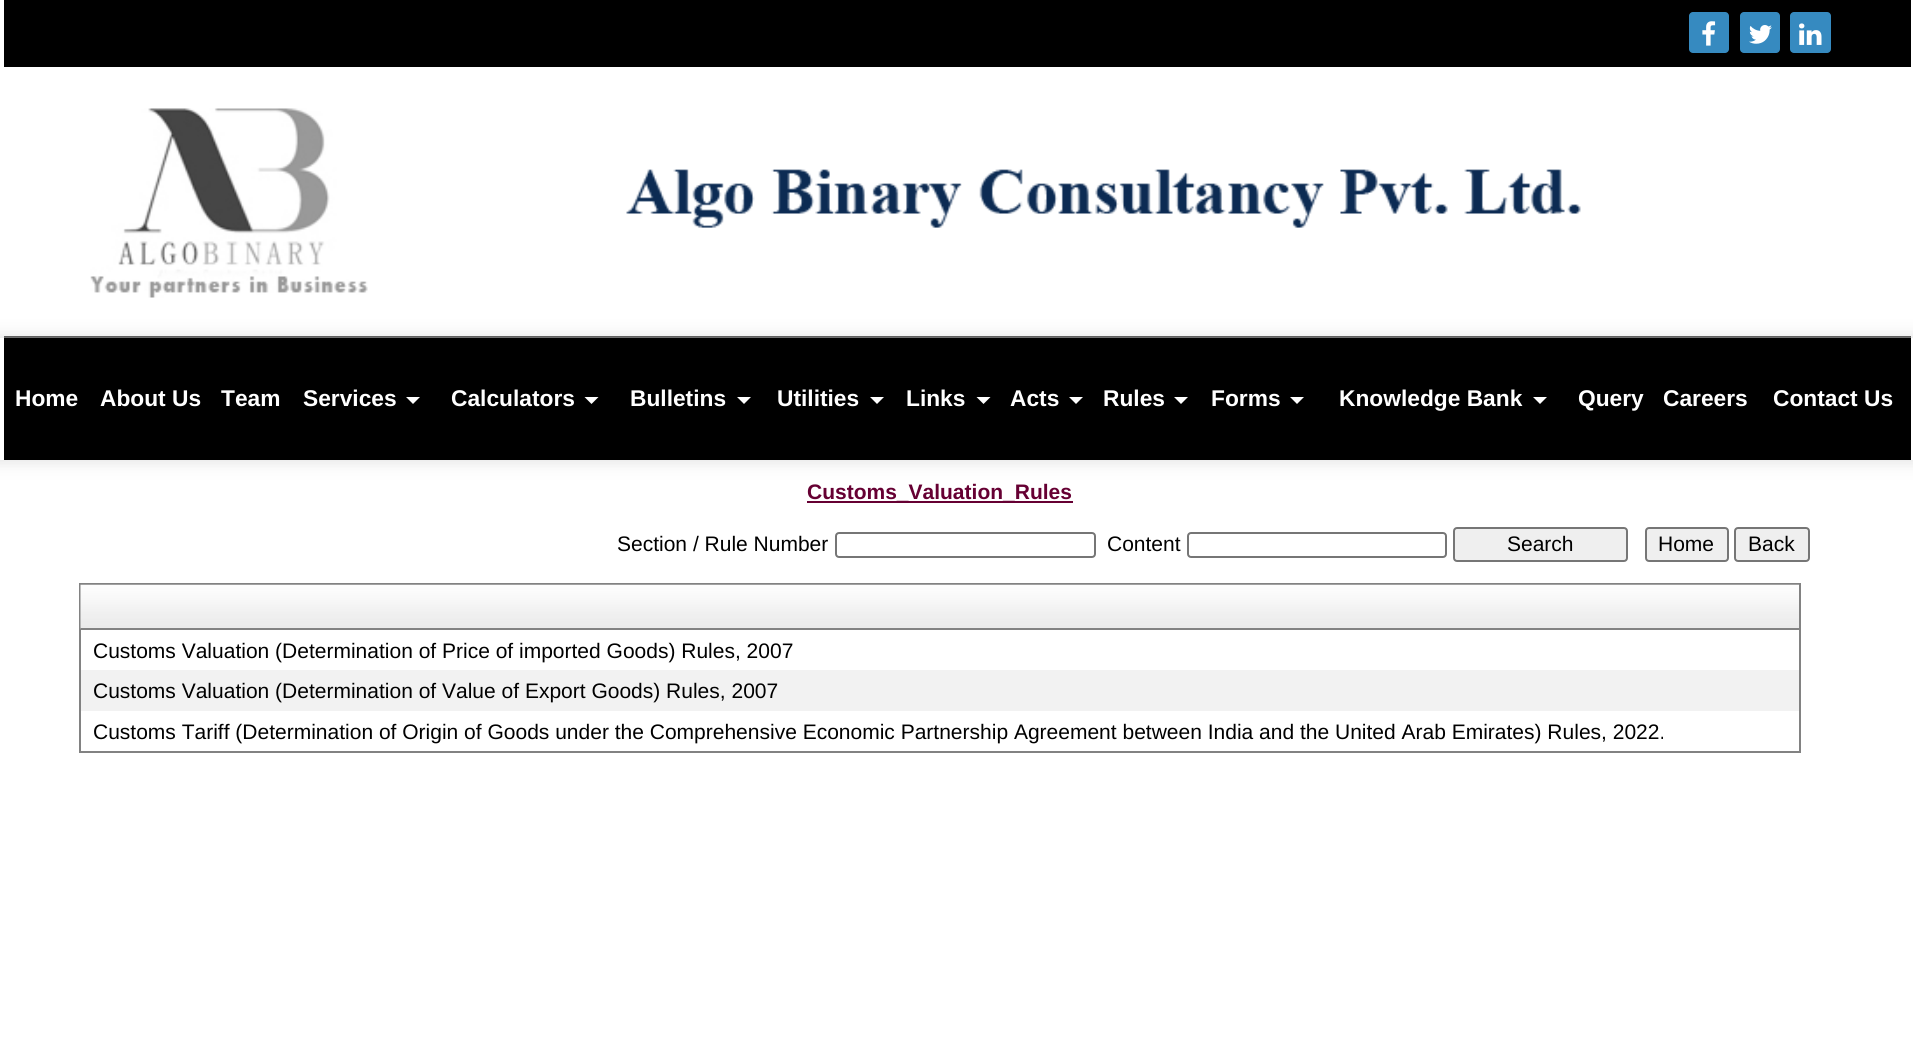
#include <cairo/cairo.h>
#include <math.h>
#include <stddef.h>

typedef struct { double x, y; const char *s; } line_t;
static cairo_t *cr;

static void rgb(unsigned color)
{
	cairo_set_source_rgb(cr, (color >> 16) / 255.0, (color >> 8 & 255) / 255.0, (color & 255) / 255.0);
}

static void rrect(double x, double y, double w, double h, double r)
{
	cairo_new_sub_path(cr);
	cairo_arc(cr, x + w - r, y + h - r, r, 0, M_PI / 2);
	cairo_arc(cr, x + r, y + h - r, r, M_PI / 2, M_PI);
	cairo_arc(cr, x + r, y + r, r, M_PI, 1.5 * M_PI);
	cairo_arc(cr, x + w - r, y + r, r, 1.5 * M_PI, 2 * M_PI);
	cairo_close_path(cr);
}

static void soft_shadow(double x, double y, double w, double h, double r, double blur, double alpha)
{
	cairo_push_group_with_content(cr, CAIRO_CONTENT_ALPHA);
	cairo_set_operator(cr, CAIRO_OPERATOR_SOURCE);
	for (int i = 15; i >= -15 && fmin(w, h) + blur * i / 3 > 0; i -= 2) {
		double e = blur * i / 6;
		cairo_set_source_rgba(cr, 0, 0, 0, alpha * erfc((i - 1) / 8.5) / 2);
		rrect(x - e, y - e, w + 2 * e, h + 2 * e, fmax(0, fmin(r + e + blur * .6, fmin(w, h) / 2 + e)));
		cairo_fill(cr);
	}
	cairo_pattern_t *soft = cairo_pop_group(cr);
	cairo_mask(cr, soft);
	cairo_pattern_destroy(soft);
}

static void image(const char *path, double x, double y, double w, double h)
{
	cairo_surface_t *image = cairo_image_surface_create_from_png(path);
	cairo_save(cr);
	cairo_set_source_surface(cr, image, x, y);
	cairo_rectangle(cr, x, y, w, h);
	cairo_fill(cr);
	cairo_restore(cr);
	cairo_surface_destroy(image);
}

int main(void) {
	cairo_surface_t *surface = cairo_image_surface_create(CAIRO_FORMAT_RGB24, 1913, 1052);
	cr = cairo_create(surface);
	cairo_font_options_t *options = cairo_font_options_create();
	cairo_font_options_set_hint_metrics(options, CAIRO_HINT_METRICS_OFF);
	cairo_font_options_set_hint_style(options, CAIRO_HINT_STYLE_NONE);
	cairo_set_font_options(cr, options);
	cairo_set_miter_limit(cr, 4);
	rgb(0xffffff);
	cairo_paint(cr);
	rgb(0x000000);
	cairo_rectangle(cr, 4, 336, 1907, 2);
	cairo_fill(cr);
	cairo_rectangle(cr, 4, 0, 1907, 67);
	cairo_fill(cr);
	rgb(0x368ac0);
	rrect(1689, 12, 40, 41, 4);
	cairo_fill(cr);
	image("img/1.png", 1702, 21, 14, 25);
	rrect(1740, 12, 40, 41, 4);
	cairo_fill(cr);
	image("img/2.png", 1749, 25, 23, 19);
	rrect(1790, 12, 41, 41, 4);
	cairo_fill(cr);
	image("img/3.png", 1799, 23, 23, 22);
	image("img/4.png", 90, 108, 278, 190);
	image("img/5.png", 626, 169, 955, 59);
	cairo_save(cr);
	cairo_set_fill_rule(cr, CAIRO_FILL_RULE_EVEN_ODD);
	cairo_new_path(cr);
	cairo_move_to(cr, 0, 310);
	cairo_line_to(cr, 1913, 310);
	cairo_line_to(cr, 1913, 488);
	cairo_line_to(cr, 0, 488);
	cairo_close_path(cr);
	cairo_move_to(cr, -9, 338);
	cairo_line_to(cr, 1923, 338);
	cairo_line_to(cr, 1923, 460);
	cairo_line_to(cr, -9, 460);
	cairo_close_path(cr);
	cairo_clip(cr);
	rgb(0xdddddd);
	soft_shadow(-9, 338, 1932, 122, 0, 9, 1);
	cairo_restore(cr);
	rgb(0x000000);
	cairo_rectangle(cr, 4, 338, 1907, 122);
	cairo_fill(cr);
	rgb(0xffffff);
	cairo_new_path(cr);
	cairo_move_to(cr, 406, 397);
	cairo_line_to(cr, 420, 397);
	cairo_line_to(cr, 413, 404);
	cairo_close_path(cr);
	cairo_fill(cr);
	cairo_new_path(cr);
	cairo_move_to(cr, 584.5, 397);
	cairo_line_to(cr, 598.5, 397);
	cairo_line_to(cr, 591.5, 404);
	cairo_close_path(cr);
	cairo_fill(cr);
	cairo_new_path(cr);
	cairo_move_to(cr, 737, 397);
	cairo_line_to(cr, 751, 397);
	cairo_line_to(cr, 744, 404);
	cairo_close_path(cr);
	cairo_fill(cr);
	cairo_new_path(cr);
	cairo_move_to(cr, 870, 397);
	cairo_line_to(cr, 884, 397);
	cairo_line_to(cr, 877, 404);
	cairo_close_path(cr);
	cairo_fill(cr);
	cairo_new_path(cr);
	cairo_move_to(cr, 976.5, 397);
	cairo_line_to(cr, 990.5, 397);
	cairo_line_to(cr, 983.5, 404);
	cairo_close_path(cr);
	cairo_fill(cr);
	cairo_new_path(cr);
	cairo_move_to(cr, 1069, 397);
	cairo_line_to(cr, 1083, 397);
	cairo_line_to(cr, 1076, 404);
	cairo_close_path(cr);
	cairo_fill(cr);
	cairo_new_path(cr);
	cairo_move_to(cr, 1174, 397);
	cairo_line_to(cr, 1188, 397);
	cairo_line_to(cr, 1181, 404);
	cairo_close_path(cr);
	cairo_fill(cr);
	cairo_new_path(cr);
	cairo_move_to(cr, 1290, 397);
	cairo_line_to(cr, 1304, 397);
	cairo_line_to(cr, 1297, 404);
	cairo_close_path(cr);
	cairo_fill(cr);
	cairo_new_path(cr);
	cairo_move_to(cr, 1533, 397);
	cairo_line_to(cr, 1547, 397);
	cairo_line_to(cr, 1540, 404);
	cairo_close_path(cr);
	cairo_fill(cr);
	rgb(0x660033);
	cairo_rectangle(cr, 807, 501, 266, 2);
	cairo_fill(cr);
	rrect(836, 533, 259, 24, 3);
	rgb(0x767676);
	cairo_stroke(cr);
	rrect(1188, 533, 258, 24, 3);
	cairo_stroke(cr);
	rgb(0xefefef);
	rrect(1454, 528, 173, 33, 3);
	cairo_fill_preserve(cr);
	rgb(0x767676);
	cairo_stroke(cr);
	rgb(0xefefef);
	rrect(1646, 528, 82, 33, 3);
	cairo_fill_preserve(cr);
	rgb(0x767676);
	cairo_stroke(cr);
	rgb(0xefefef);
	rrect(1735, 528, 74, 33, 3);
	cairo_fill_preserve(cr);
	rgb(0x767676);
	cairo_stroke(cr);
	cairo_rectangle(cr, 80, 584, 1720, 168);
	rgb(0x828282);
	cairo_stroke(cr);
	image("img/6.png", 80, 584, 1719, 45);
	cairo_rectangle(cr, 81, 628, 1718, 2);
	cairo_fill(cr);
	rgb(0xf2f2f2);
	cairo_rectangle(cr, 81, 670, 1718, 41);
	cairo_fill(cr);
	cairo_select_font_face(cr, "Liberation Sans", CAIRO_FONT_SLANT_NORMAL, CAIRO_FONT_WEIGHT_BOLD);
	cairo_set_font_size(cr, 22.75);
	rgb(0xffffff);
	{
		static const line_t items[] = {
			{15, 406, "Home"},
			{100, 406, "About Us"},
			{221, 406, "Team"},
			{303, 406, "Services"},
			{451, 406, "Calculators"},
			{630, 406, "Bulletins"},
			{777, 406, "Utilities"},
			{906, 406, "Links"},
			{1010, 406, "Acts"},
			{1103, 406, "Rules"},
			{1211, 406, "Forms"},
			{1339, 406, "Knowledge Bank"},
			{1578, 406, "Query"},
			{1663, 406, "Careers"},
			{1773, 406, "Contact Us"},
		};
		for (size_t i = 0; i < sizeof items / sizeof *items; i++) {
			cairo_move_to(cr, items[i].x, items[i].y);
			cairo_show_text(cr, items[i].s);
		}
	}
	cairo_set_font_size(cr, 21);
	rgb(0x660033);
	cairo_move_to(cr, 807, 499);
	cairo_show_text(cr, "Customs_Valuation_Rules");
	cairo_select_font_face(cr, "Liberation Sans", CAIRO_FONT_SLANT_NORMAL, CAIRO_FONT_WEIGHT_NORMAL);
	rgb(0x000000);
	{
		static const line_t items[] = {
			{617, 551, "Section / Rule Number"},
			{1107, 551, "Content"},
			{1507, 551, "Search"},
			{1658, 551, "Home"},
			{1748, 551, "Back"},
			{93, 658, "Customs Valuation (Determination of Price of imported Goods) Rules, 2007"},
			{93, 698, "Customs Valuation (Determination of Value of Export Goods) Rules, 2007"},
			{93, 739, "Customs Tariff (Determination of Origin of Goods under the Comprehensive Economic Partnership Agreement between India and the United Arab Emirates) Rules, 2022."},
		};
		for (size_t i = 0; i < sizeof items / sizeof *items; i++) {
			cairo_move_to(cr, items[i].x, items[i].y);
			cairo_show_text(cr, items[i].s);
		}
	}
	cairo_surface_write_to_png(surface, "page.png");
	cairo_font_options_destroy(options);
	cairo_destroy(cr);
	cairo_surface_destroy(surface);
	return 0;
}
